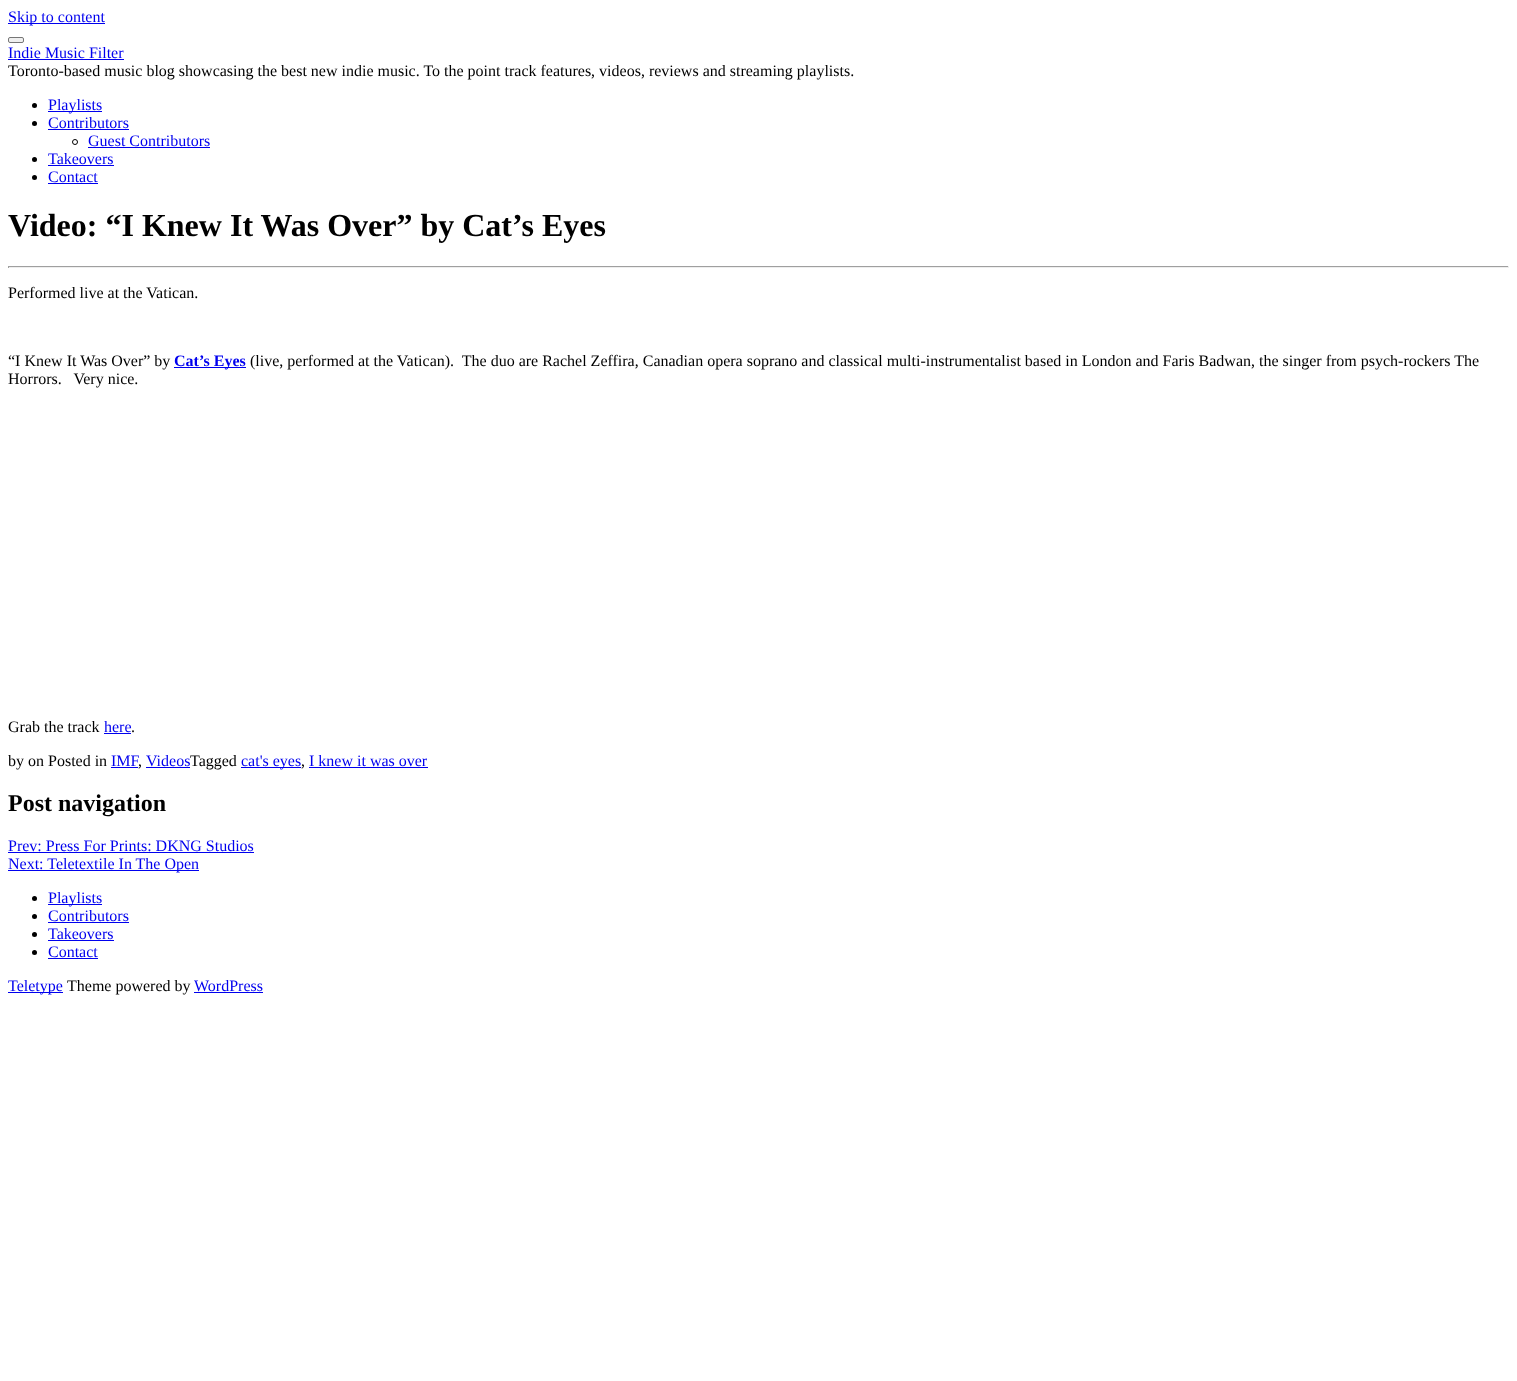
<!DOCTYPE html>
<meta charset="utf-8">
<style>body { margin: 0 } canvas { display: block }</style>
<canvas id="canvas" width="1517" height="1381"></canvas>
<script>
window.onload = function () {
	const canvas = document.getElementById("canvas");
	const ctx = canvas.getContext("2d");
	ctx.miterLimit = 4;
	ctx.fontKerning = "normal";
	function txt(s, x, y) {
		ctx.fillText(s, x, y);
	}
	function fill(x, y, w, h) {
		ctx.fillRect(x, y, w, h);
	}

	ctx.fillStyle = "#FFFFFF";
	fill(0, 0, 1517, 1381);
	ctx.fillStyle = "#0000EE";
	fill(8, 23, 97, 1);
	ctx.fillStyle = "#EFEFEF";
	ctx.beginPath();
	ctx.roundRect(8.5, 37.5, 15, 5, 1.5);
	ctx.fill();
	ctx.strokeStyle = "#767676";
	ctx.stroke();
	ctx.fillStyle = "#0000EE";
	fill(8, 59, 116, 1);
	ctx.fillStyle = "#000000";
	ctx.beginPath();
	ctx.arc(34.5, 105.5, 2.5, 0, Math.PI * 2);
	ctx.fill();
	ctx.fillStyle = "#0000EE";
	fill(48, 111, 54, 1);
	ctx.fillStyle = "#000000";
	ctx.beginPath();
	ctx.arc(34.5, 123.5, 2.5, 0, Math.PI * 2);
	ctx.fill();
	ctx.fillStyle = "#0000EE";
	fill(48, 129, 81, 1);
	ctx.beginPath();
	ctx.arc(75, 142, 2.5, 0, Math.PI * 2);
	ctx.strokeStyle = "#000000";
	ctx.stroke();
	fill(88, 147, 122, 1);
	ctx.fillStyle = "#000000";
	ctx.beginPath();
	ctx.arc(34.5, 159.5, 2.5, 0, Math.PI * 2);
	ctx.fill();
	ctx.fillStyle = "#0000EE";
	fill(48, 165, 66, 1);
	ctx.fillStyle = "#000000";
	ctx.beginPath();
	ctx.arc(34.5, 177.5, 2.5, 0, Math.PI * 2);
	ctx.fill();
	ctx.fillStyle = "#0000EE";
	fill(48, 183, 50, 1);
	ctx.fillStyle = "#9F9F9F";
	fill(8, 266, 1501, 1);
	ctx.fillStyle = "#EEEEEE";
	fill(1508, 266, 1, 2);
	fill(8, 267, 1501, 1);
	ctx.fillStyle = "#9F9F9F";
	fill(8, 266, 1, 2);
	ctx.fillStyle = "#0000EE";
	fill(174, 367, 72, 1);
	fill(104, 733, 27, 1);
	fill(111, 767, 27, 1);
	fill(146, 767, 44, 1);
	fill(241, 767, 60, 1);
	fill(309, 767, 119, 1);
	fill(8, 852, 246, 1);
	fill(8, 870, 191, 1);
	ctx.fillStyle = "#000000";
	ctx.beginPath();
	ctx.arc(34.5, 898.5, 2.5, 0, Math.PI * 2);
	ctx.fill();
	ctx.fillStyle = "#0000EE";
	fill(48, 904, 54, 1);
	ctx.fillStyle = "#000000";
	ctx.beginPath();
	ctx.arc(34.5, 916.5, 2.5, 0, Math.PI * 2);
	ctx.fill();
	ctx.fillStyle = "#0000EE";
	fill(48, 922, 81, 1);
	ctx.fillStyle = "#000000";
	ctx.beginPath();
	ctx.arc(34.5, 934.5, 2.5, 0, Math.PI * 2);
	ctx.fill();
	ctx.fillStyle = "#0000EE";
	fill(48, 940, 66, 1);
	ctx.fillStyle = "#000000";
	ctx.beginPath();
	ctx.arc(34.5, 952.5, 2.5, 0, Math.PI * 2);
	ctx.fill();
	ctx.fillStyle = "#0000EE";
	fill(48, 958, 50, 1);
	fill(8, 992, 55, 1);
	fill(194, 992, 69, 1);
	ctx.font = "16px Liberation Serif";
	txt("Skip to content", 8, 22);
	txt("Indie Music Filter", 8, 58);
	ctx.fillStyle = "#000000";
	txt("Toronto-based music blog showcasing the best new indie music. To the point track features, videos, reviews and streaming playlists.", 8, 76);
	ctx.fillStyle = "#0000EE";
	txt("Playlists", 48, 110);
	txt("Contributors", 48, 128);
	txt("Guest Contributors", 88, 146);
	txt("Takeovers", 48, 164);
	txt("Contact", 48, 182);
	ctx.font = "bold 32px Liberation Serif";
	ctx.fillStyle = "#000000";
	txt("Video: “I Knew It Was Over” by Cat’s Eyes", 8, 236);
	ctx.font = "16px Liberation Serif";
	txt("Performed live at the Vatican.", 8, 298);
	txt("“I Knew It Was Over” by", 8, 366);
	ctx.font = "bold 16px Liberation Serif";
	ctx.fillStyle = "#0000EE";
	txt("Cat’s Eyes", 174, 366);
	ctx.font = "16px Liberation Serif";
	ctx.fillStyle = "#000000";
	txt("(live, performed at the Vatican).  The duo are Rachel Zeffira, Canadian opera soprano and classical multi-instrumentalist based in London and Faris Badwan, the singer from psych-rockers The", 250, 366);
	txt("Horrors.   Very nice.", 8, 384);
	txt("Grab the track", 8, 732);
	ctx.fillStyle = "#0000EE";
	txt("here", 104, 732);
	ctx.fillStyle = "#000000";
	txt(".", 131, 732);
	txt("by on Posted in", 8, 766);
	ctx.fillStyle = "#0000EE";
	txt("IMF", 111, 766);
	ctx.fillStyle = "#000000";
	txt(",", 138, 766);
	ctx.fillStyle = "#0000EE";
	txt("Videos", 146, 766);
	ctx.fillStyle = "#000000";
	txt("Tagged", 190, 766);
	ctx.fillStyle = "#0000EE";
	txt("cat's eyes", 241, 766);
	ctx.fillStyle = "#000000";
	txt(",", 301, 766);
	ctx.fillStyle = "#0000EE";
	txt("I knew it was over", 309, 766);
	ctx.font = "bold 24px Liberation Serif";
	ctx.fillStyle = "#000000";
	txt("Post navigation", 8, 811);
	ctx.font = "16px Liberation Serif";
	ctx.fillStyle = "#0000EE";
	txt("Prev: Press For Prints: DKNG Studios", 8, 851);
	txt("Next: Teletextile In The Open", 8, 869);
	txt("Playlists", 48, 903);
	txt("Contributors", 48, 921);
	txt("Takeovers", 48, 939);
	txt("Contact", 48, 957);
	txt("Teletype", 8, 991);
	ctx.fillStyle = "#000000";
	txt("Theme powered by", 67, 991);
	ctx.fillStyle = "#0000EE";
	txt("WordPress", 194, 991);
};
</script>
